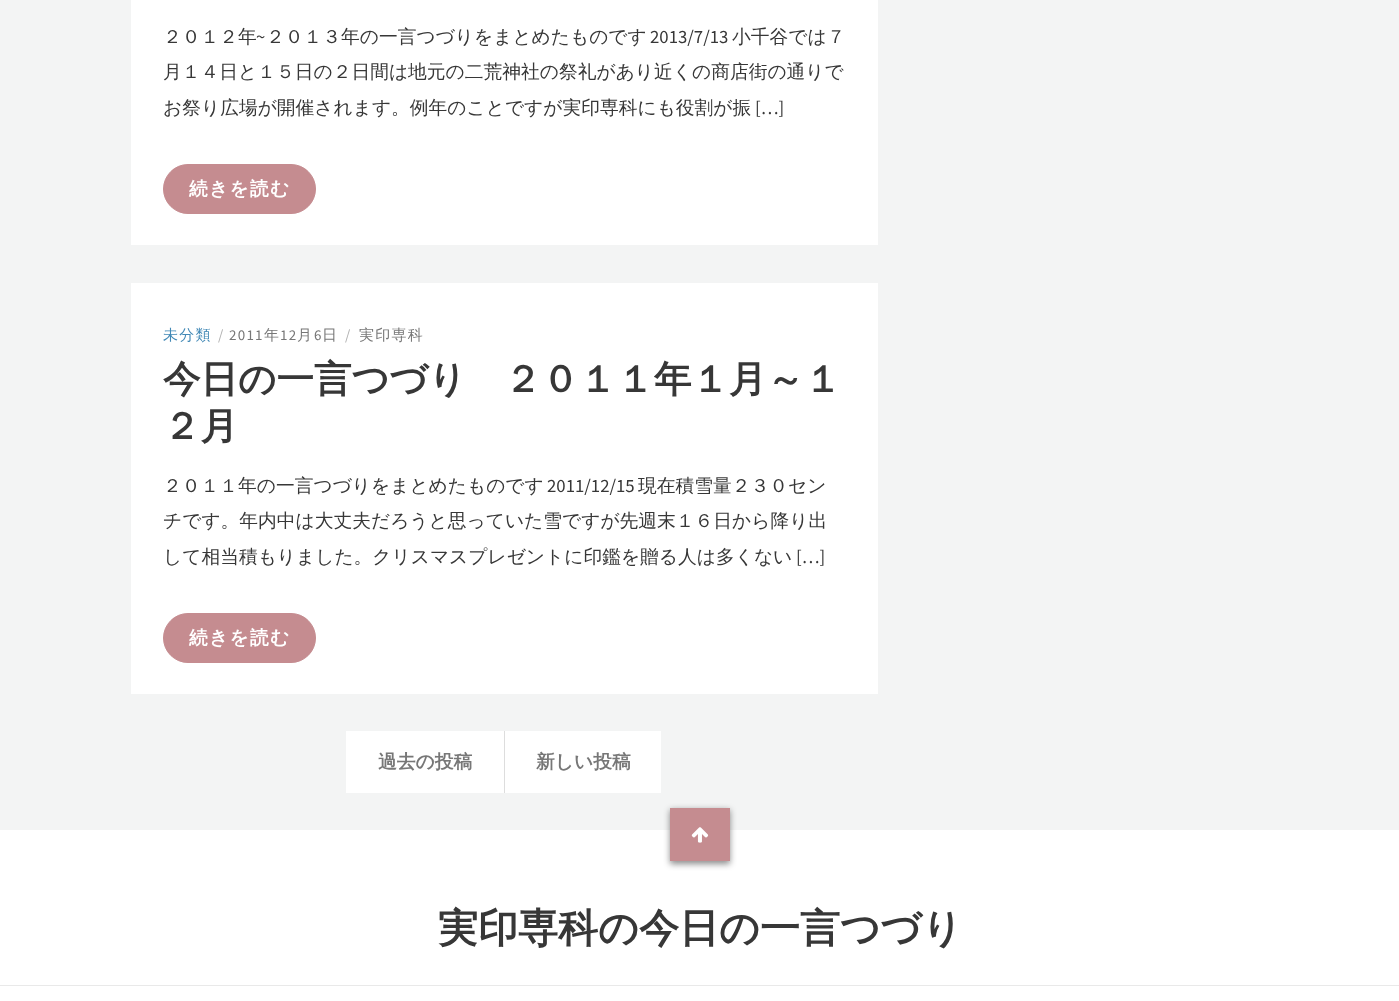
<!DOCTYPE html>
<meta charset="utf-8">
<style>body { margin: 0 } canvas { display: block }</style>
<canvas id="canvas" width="1399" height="1001"></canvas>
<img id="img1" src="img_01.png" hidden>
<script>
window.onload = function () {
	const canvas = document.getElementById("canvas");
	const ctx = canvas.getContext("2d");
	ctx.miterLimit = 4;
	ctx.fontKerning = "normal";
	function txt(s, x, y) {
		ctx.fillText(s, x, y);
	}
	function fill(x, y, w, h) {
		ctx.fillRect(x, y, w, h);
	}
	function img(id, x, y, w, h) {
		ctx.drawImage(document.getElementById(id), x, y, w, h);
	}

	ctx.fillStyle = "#F3F4F4";
	fill(0, 0, 1399, 1001);
	ctx.fillStyle = "#FFFFFF";
	fill(131, 0, 747, 245);
	ctx.fillStyle = "#C58C90";
	ctx.beginPath();
	ctx.roundRect(163.5, 164.5, 152, 49, 24.5);
	ctx.fill();
	ctx.strokeStyle = "#C58C90";
	ctx.stroke();
	ctx.fillStyle = "#FFFFFF";
	fill(131, 283, 747, 411);
	ctx.fillStyle = "#C58C90";
	ctx.beginPath();
	ctx.roundRect(163.5, 613.5, 152, 49, 24.5);
	ctx.fill();
	ctx.stroke();
	ctx.fillStyle = "#FFFFFF";
	fill(346, 731, 158, 62);
	ctx.fillStyle = "#DDDDDD";
	fill(504, 731, 1, 62);
	ctx.fillStyle = "#FFFFFF";
	fill(505, 731, 156, 62);
	fill(0, 830, 1399, 171);
	ctx.fillStyle = "rgba(0, 0, 0, 0.45)";
	ctx.filter = "blur(3px)";
	ctx.beginPath();
	ctx.rect(670, 810, 60, 54);
	ctx.fill();
	ctx.filter = "none";
	ctx.fillStyle = "#C58C90";
	fill(670, 808, 60, 53);
	img("img1", 691, 827, 18, 16);
	ctx.fillStyle = "#E9E9E9";
	fill(0, 985, 1399, 1);
	ctx.font = "500 18.75px WenQuanYi Zen Hei";
	ctx.fillStyle = "#373737";
	txt("２０１２年", 163, 43);
	ctx.font = "18.75px Source Sans Pro";
	txt("~", 256, 43);
	ctx.font = "500 18.75px WenQuanYi Zen Hei";
	txt("２０１３年の一言つづりをまとめたものです", 266, 43);
	ctx.font = "18.75px Source Sans Pro";
	txt("2013/7/13", 650, 43);
	ctx.font = "500 18.75px WenQuanYi Zen Hei";
	txt("小千谷では７", 732, 43);
	txt("月１４日と１５日の２日間は地元の二荒神社の祭礼があり近くの商店街の通りで", 163, 78);
	txt("お祭り広場が開催されます。例年のことですが実印専科にも役割が振", 163, 114);
	ctx.font = "18.75px Source Sans Pro";
	txt("[…]", 755, 114);
	ctx.letterSpacing = "1.25px";
	ctx.font = "bold 18.75px WenQuanYi Zen Hei";
	ctx.fillStyle = "#FFFFFF";
	txt("続きを読む", 189, 195);
	ctx.font = "500 15px WenQuanYi Zen Hei";
	ctx.fillStyle = "#4289B6";
	txt("未分類", 163, 340);
	ctx.letterSpacing = "0px";
	ctx.font = "15px Source Sans Pro";
	ctx.fillStyle = "#B1B1B1";
	txt("/", 218, 340);
	ctx.letterSpacing = "1.25px";
	ctx.fillStyle = "#777777";
	txt("2011", 229, 340);
	ctx.font = "500 15px WenQuanYi Zen Hei";
	txt("年", 264, 340);
	ctx.font = "15px Source Sans Pro";
	txt("12", 280, 340);
	ctx.font = "500 15px WenQuanYi Zen Hei";
	txt("月", 297, 340);
	ctx.font = "15px Source Sans Pro";
	txt("6", 314, 340);
	ctx.font = "500 15px WenQuanYi Zen Hei";
	txt("日", 322, 340);
	ctx.letterSpacing = "0px";
	ctx.font = "15px Source Sans Pro";
	ctx.fillStyle = "#B1B1B1";
	txt("/", 345, 340);
	ctx.letterSpacing = "1.25px";
	ctx.font = "500 15px WenQuanYi Zen Hei";
	ctx.fillStyle = "#777777";
	txt("実印専科", 359, 340);
	ctx.letterSpacing = "0px";
	ctx.font = "bold 37.5px WenQuanYi Zen Hei";
	ctx.fillStyle = "#373737";
	txt("今日の一言つづり　２０１１年１月～１", 163, 392);
	txt("２月", 163, 439);
	ctx.font = "500 18.75px WenQuanYi Zen Hei";
	txt("２０１１年の一言つづりをまとめたものです", 163, 492);
	ctx.font = "18.75px Source Sans Pro";
	txt("2011/12/15", 547, 492);
	ctx.font = "500 18.75px WenQuanYi Zen Hei";
	txt("現在積雪量２３０セン", 638, 492);
	txt("チです。年内中は大丈夫だろうと思っていた雪ですが先週末１６日から降り出", 163, 527);
	txt("して相当積もりました。クリスマスプレゼントに印鑑を贈る人は多くない", 163, 563);
	ctx.font = "18.75px Source Sans Pro";
	txt("[…]", 796, 563);
	ctx.letterSpacing = "1.25px";
	ctx.font = "bold 18.75px WenQuanYi Zen Hei";
	ctx.fillStyle = "#FFFFFF";
	txt("続きを読む", 189, 644);
	ctx.letterSpacing = "0px";
	ctx.fillStyle = "#777777";
	txt("過去の投稿", 378, 768);
	txt("新しい投稿", 536, 768);
	ctx.font = "bold 40px WenQuanYi Zen Hei";
	ctx.fillStyle = "#373737";
	txt("実印専科の今日の一言つづり", 438, 942);
};
</script>
